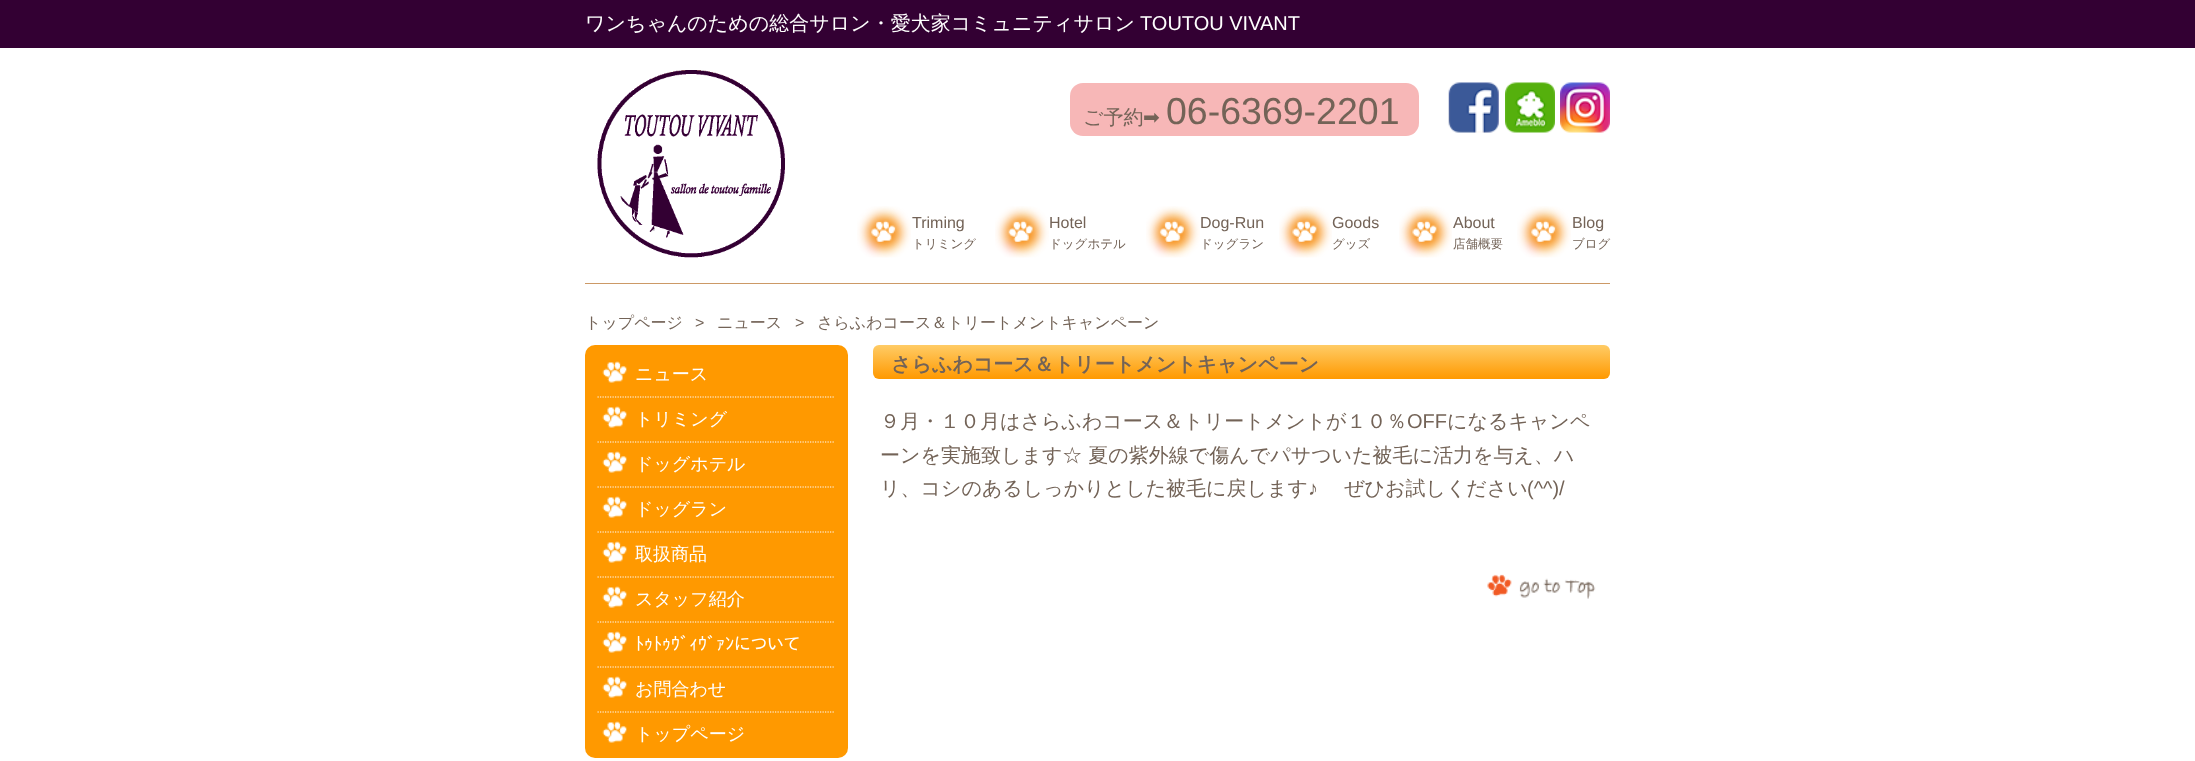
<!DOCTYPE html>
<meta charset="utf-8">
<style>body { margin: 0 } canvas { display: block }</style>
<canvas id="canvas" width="2195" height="761"></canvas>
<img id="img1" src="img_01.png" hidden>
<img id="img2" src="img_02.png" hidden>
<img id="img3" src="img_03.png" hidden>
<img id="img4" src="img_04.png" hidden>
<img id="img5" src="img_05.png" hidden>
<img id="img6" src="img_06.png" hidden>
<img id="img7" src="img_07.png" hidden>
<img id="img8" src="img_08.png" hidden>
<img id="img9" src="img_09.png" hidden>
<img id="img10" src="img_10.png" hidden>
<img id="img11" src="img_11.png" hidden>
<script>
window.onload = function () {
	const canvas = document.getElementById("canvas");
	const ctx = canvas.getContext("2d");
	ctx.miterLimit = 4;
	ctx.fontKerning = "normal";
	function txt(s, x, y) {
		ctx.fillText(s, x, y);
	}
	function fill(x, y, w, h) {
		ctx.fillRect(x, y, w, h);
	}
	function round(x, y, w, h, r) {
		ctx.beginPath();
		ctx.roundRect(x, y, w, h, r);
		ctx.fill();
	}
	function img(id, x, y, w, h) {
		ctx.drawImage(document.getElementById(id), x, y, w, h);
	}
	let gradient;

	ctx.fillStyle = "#FFFFFF";
	fill(0, 0, 2195, 761);
	ctx.fillStyle = "#330033";
	fill(0, 0, 2195, 48);
	ctx.fillStyle = "#CC9966";
	fill(585, 283, 1025, 1);
	img("img1", 597, 70, 188, 188);
	ctx.fillStyle = "#F7B7B7";
	round(1070, 83, 349, 53, 13);
	img("img2", 1448, 82, 51, 51);
	img("img3", 1505, 82, 50, 51);
	img("img4", 1560, 82, 50, 51);
	img("img5", 857, 206, 54, 52);
	img("img6", 995, 206, 54, 52);
	img("img7", 1146, 206, 54, 52);
	img("img8", 1279, 206, 53, 52);
	img("img8", 1399, 206, 53, 52);
	img("img5", 1517, 206, 54, 52);
	ctx.fillStyle = "#FF9900";
	round(585, 345, 263, 413, 10);
	img("img9", 602, 361, 25, 22);
	img("img9", 602, 406, 25, 22);
	ctx.beginPath();
	ctx.moveTo(597.5, 397);
	ctx.lineTo(835, 397);
	ctx.strokeStyle = "#FFFFFF";
	ctx.lineWidth = 1.2;
	ctx.setLineDash([1.25, 1.25]);
	ctx.stroke();
	img("img9", 602, 451, 25, 22);
	ctx.beginPath();
	ctx.moveTo(597.5, 442);
	ctx.lineTo(835, 442);
	ctx.stroke();
	img("img9", 602, 496, 25, 22);
	ctx.beginPath();
	ctx.moveTo(597.5, 487);
	ctx.lineTo(835, 487);
	ctx.stroke();
	img("img9", 602, 541, 25, 22);
	ctx.beginPath();
	ctx.moveTo(597.5, 532);
	ctx.lineTo(835, 532);
	ctx.stroke();
	img("img10", 602, 586, 25, 22);
	ctx.beginPath();
	ctx.moveTo(597.5, 577);
	ctx.lineTo(835, 577);
	ctx.stroke();
	img("img9", 602, 631, 25, 22);
	ctx.beginPath();
	ctx.moveTo(597.5, 622);
	ctx.lineTo(835, 622);
	ctx.stroke();
	img("img9", 602, 676, 25, 22);
	ctx.beginPath();
	ctx.moveTo(597.5, 667);
	ctx.lineTo(835, 667);
	ctx.stroke();
	img("img9", 602, 721, 25, 22);
	ctx.beginPath();
	ctx.moveTo(597.5, 712);
	ctx.lineTo(835, 712);
	ctx.stroke();
	gradient = ctx.createLinearGradient(873, 345, 873, 379);
	gradient.addColorStop(0, "#FFCC66");
	gradient.addColorStop(1, "#FF9900");
	ctx.fillStyle = gradient;
	round(873, 345, 737, 34, 6);
	img("img11", 1487, 574, 109, 25);
	ctx.font = "500 20px WenQuanYi Zen Hei";
	ctx.fillStyle = "#FFFFFF";
	txt("ワンちゃんのための総合サロン・愛犬家コミュニティサロン", 585, 30);
	ctx.font = "20px Liberation Sans";
	txt("TOUTOU VIVANT", 1140, 30);
	ctx.font = "500 20px WenQuanYi Zen Hei";
	ctx.fillStyle = "#736357";
	txt("ご予約", 1083, 124);
	ctx.font = "20px DejaVu Sans";
	txt("➡︎", 1143, 124);
	ctx.font = "37.5px Liberation Sans";
	txt("06-6369-2201", 1166, 124);
	ctx.font = "16px Liberation Sans";
	txt("Triming", 912, 228);
	ctx.font = "500 12.5px WenQuanYi Zen Hei";
	txt("トリミング", 912, 248);
	ctx.font = "16px Liberation Sans";
	txt("Hotel", 1049, 228);
	ctx.font = "500 12.5px WenQuanYi Zen Hei";
	txt("ドッグホテル", 1049, 248);
	ctx.font = "16px Liberation Sans";
	txt("Dog-Run", 1200, 228);
	ctx.font = "500 12.5px WenQuanYi Zen Hei";
	txt("ドッグラン", 1200, 248);
	ctx.font = "16px Liberation Sans";
	txt("Goods", 1332, 228);
	ctx.font = "500 12.5px WenQuanYi Zen Hei";
	txt("グッズ", 1332, 248);
	ctx.font = "16px Liberation Sans";
	txt("About", 1453, 228);
	ctx.font = "500 12.5px WenQuanYi Zen Hei";
	txt("店舗概要", 1453, 248);
	ctx.font = "16px Liberation Sans";
	txt("Blog", 1572, 228);
	ctx.font = "500 12.5px WenQuanYi Zen Hei";
	txt("ブログ", 1572, 248);
	ctx.font = "500 16px WenQuanYi Zen Hei";
	txt("トップページ", 585, 328);
	ctx.letterSpacing = "12px";
	ctx.font = "16px Liberation Sans";
	txt(">", 695, 328);
	ctx.letterSpacing = "0px";
	ctx.font = "500 16px WenQuanYi Zen Hei";
	txt("ニュース", 717, 328);
	ctx.letterSpacing = "12px";
	ctx.font = "16px Liberation Sans";
	txt(">", 795, 328);
	ctx.letterSpacing = "0px";
	ctx.font = "500 16px WenQuanYi Zen Hei";
	txt("さらふわコース＆トリートメントキャンペーン", 817, 328);
	ctx.font = "500 18px WenQuanYi Zen Hei";
	ctx.fillStyle = "#FFFFFF";
	txt("ニュース", 635, 380);
	txt("トリミング", 635, 425);
	txt("ドッグホテル", 635, 470);
	txt("ドッグラン", 635, 515);
	txt("取扱商品", 635, 560);
	txt("スタッフ紹介", 635, 605);
	ctx.font = "18px IPAPGothic";
	txt("ﾄｩﾄｩｳﾞｨｳﾞｧﾝについて", 635, 650);
	ctx.font = "500 18px WenQuanYi Zen Hei";
	txt("お問合わせ", 635, 695);
	txt("トップページ", 635, 740);
	ctx.font = "bold 20px WenQuanYi Zen Hei";
	ctx.fillStyle = "#736357";
	txt("さらふわコース＆トリートメントキャンペーン", 891, 371);
	ctx.font = "500 20px WenQuanYi Zen Hei";
	txt("９月・１０月はさらふわコース＆トリートメントが１０％", 880, 428);
	ctx.font = "20px Liberation Sans";
	txt("OFF", 1407, 428);
	ctx.font = "500 20px WenQuanYi Zen Hei";
	txt("になるキャンペ", 1447, 428);
	txt("ーンを実施致します☆ 夏の紫外線で傷んでパサついた被毛に活力を与え、ハ", 880, 462);
	txt("リ、コシのあるしっかりとした被毛に戻します", 880, 495);
	ctx.font = "20px Liberation Sans";
	txt("♪", 1308, 495);
	ctx.font = "500 20px WenQuanYi Zen Hei";
	txt("ぜひお試しください", 1344, 495);
	ctx.font = "20px Liberation Sans";
	txt("(^^)/", 1527, 495);
};
</script>
